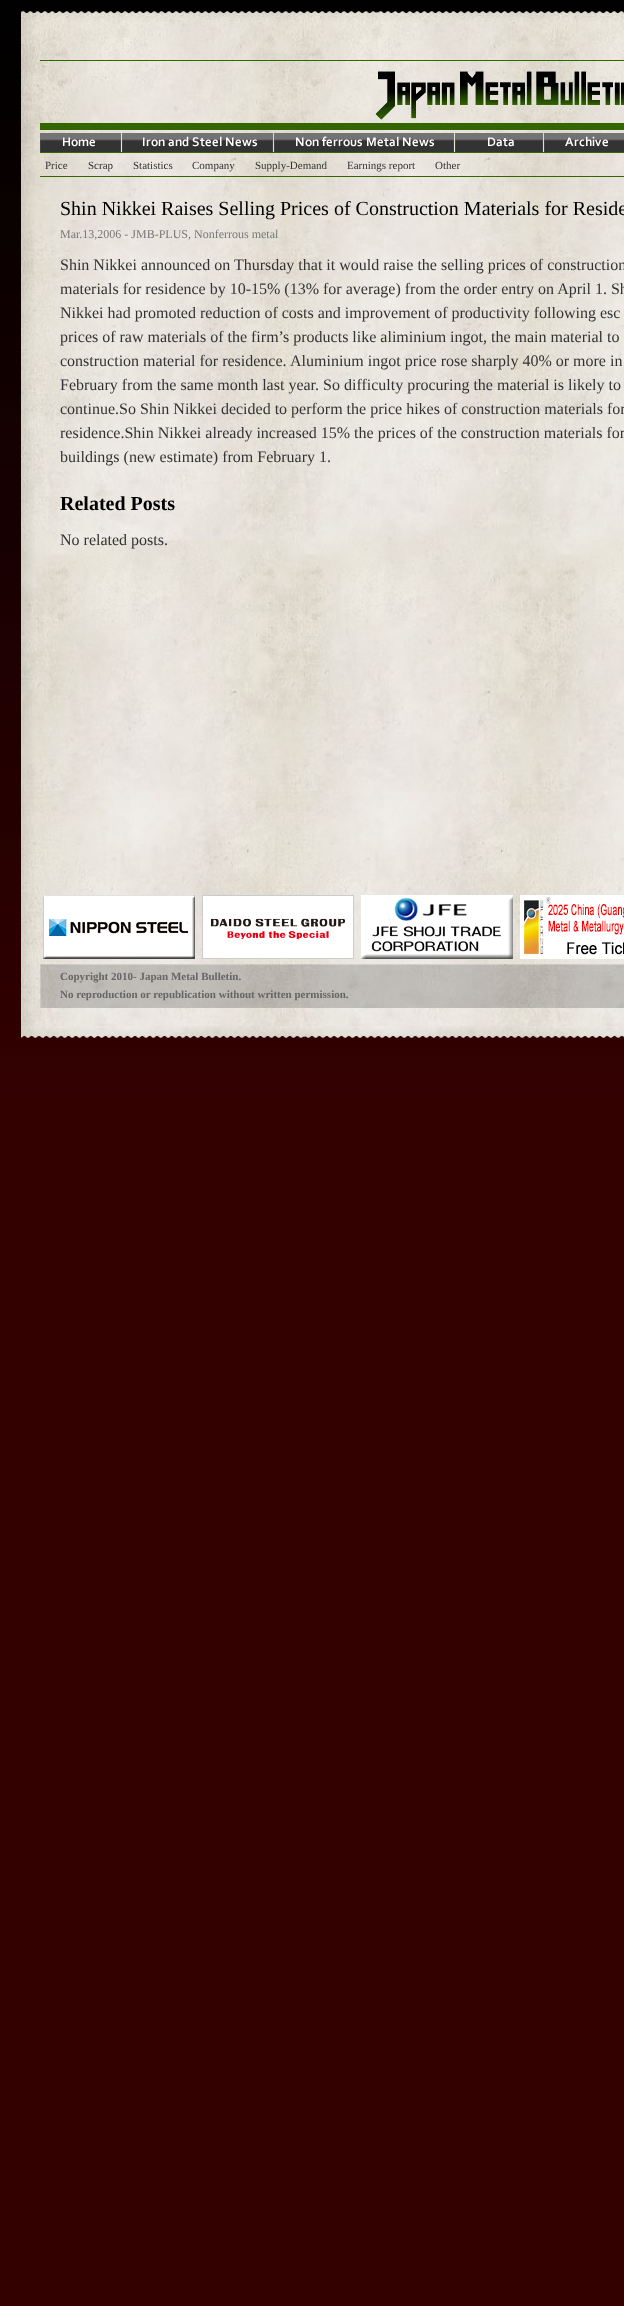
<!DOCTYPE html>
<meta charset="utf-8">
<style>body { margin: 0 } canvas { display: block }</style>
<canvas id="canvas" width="624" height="2306"></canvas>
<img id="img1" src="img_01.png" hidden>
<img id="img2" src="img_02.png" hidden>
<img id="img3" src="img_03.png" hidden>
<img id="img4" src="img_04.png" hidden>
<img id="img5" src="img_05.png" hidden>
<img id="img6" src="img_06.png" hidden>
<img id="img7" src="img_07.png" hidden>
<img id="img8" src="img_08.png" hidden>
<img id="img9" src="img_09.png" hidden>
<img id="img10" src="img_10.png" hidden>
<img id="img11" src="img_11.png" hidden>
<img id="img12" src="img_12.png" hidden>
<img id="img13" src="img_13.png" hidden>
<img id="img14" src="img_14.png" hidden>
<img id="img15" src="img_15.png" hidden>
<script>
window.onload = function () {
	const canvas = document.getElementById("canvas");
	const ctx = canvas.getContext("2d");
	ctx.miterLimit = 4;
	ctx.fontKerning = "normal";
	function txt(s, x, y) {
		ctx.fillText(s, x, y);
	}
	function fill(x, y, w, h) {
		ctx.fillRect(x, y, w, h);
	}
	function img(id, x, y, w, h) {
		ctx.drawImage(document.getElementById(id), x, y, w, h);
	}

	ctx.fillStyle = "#FFFFFF";
	fill(0, 0, 624, 2306);
	img("img1", 0, 0, 624, 2306);
	img("img2", 20, 10, 604, 10);
	img("img3", 20, 20, 604, 1006);
	ctx.fillStyle = "#336600";
	fill(40, 60, 584, 1);
	img("img4", 40, 71, 584, 59);
	img("img5", 40, 133, 81, 19);
	img("img6", 122, 133, 151, 19);
	img("img7", 274, 133, 180, 19);
	img("img8", 455, 133, 88, 19);
	img("img9", 544, 133, 80, 19);
	fill(40, 152, 584, 1);
	fill(40, 176, 584, 1);
	img("img10", 43, 895, 152, 64);
	img("img11", 202, 895, 152, 64);
	img("img12", 361, 895, 152, 64);
	img("img13", 520, 895, 104, 64);
	img("img14", 40, 964, 584, 44);
	img("img15", 20, 1026, 604, 13);
	ctx.font = "11px Liberation Serif";
	ctx.fillStyle = "#333333";
	txt("Price", 45, 169);
	txt("Scrap", 88, 169);
	txt("Statistics", 133, 169);
	txt("Company", 192, 169);
	txt("Supply-Demand", 255, 169);
	txt("Earnings report", 347, 169);
	txt("Other", 435, 169);
	ctx.font = "20px Liberation Serif";
	ctx.fillStyle = "#000000";
	txt("Shin Nikkei Raises Selling Prices of Construction Materials for Reside", 60, 215);
	ctx.font = "12px Liberation Serif";
	ctx.fillStyle = "#777777";
	txt("Mar.13,2006 - JMB-PLUS, Nonferrous metal", 60, 238);
	ctx.font = "16px Liberation Serif";
	ctx.fillStyle = "#333333";
	txt("Shin Nikkei announced on Thursday that it would raise the selling prices of construction", 60, 270);
	txt("materials for residence by 10-15% (13% for average) from the order entry on April 1. Sh", 60, 294);
	txt("Nikkei had promoted reduction of costs and improvement of productivity following esc", 60, 318);
	txt("prices of raw materials of the firm’s products like aliminium ingot, the main material to", 60, 342);
	txt("construction material for residence.", 60, 366);
	txt("Aluminium ingot price rose sharply 40% or more in", 290, 366);
	txt("February from the same month last year. So difficulty procuring the material is likely to", 60, 390);
	txt("continue.So Shin Nikkei decided to perform the price hikes of construction materials for", 60, 414);
	txt("residence.Shin Nikkei already increased 15% the prices of the construction materials for", 60, 438);
	txt("buildings (new estimate) from February 1.", 60, 462);
	ctx.font = "bold 20px Liberation Serif";
	ctx.fillStyle = "#000000";
	txt("Related Posts", 60, 510);
	ctx.font = "16px Liberation Serif";
	ctx.fillStyle = "#333333";
	txt("No related posts.", 60, 545);
	ctx.font = "bold 11px Liberation Serif";
	ctx.fillStyle = "#666666";
	txt("Copyright 2010- Japan Metal Bulletin.", 60, 980);
	txt("No reproduction or republication without written permission.", 60, 998);
};
</script>
